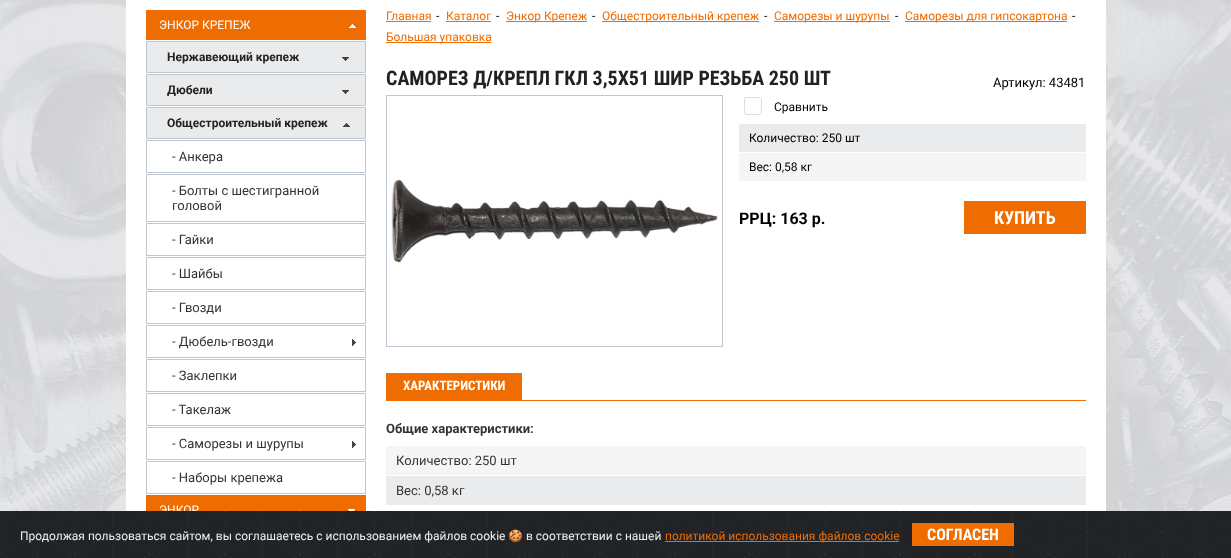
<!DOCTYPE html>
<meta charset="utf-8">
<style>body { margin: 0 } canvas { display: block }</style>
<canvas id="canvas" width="1231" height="558"></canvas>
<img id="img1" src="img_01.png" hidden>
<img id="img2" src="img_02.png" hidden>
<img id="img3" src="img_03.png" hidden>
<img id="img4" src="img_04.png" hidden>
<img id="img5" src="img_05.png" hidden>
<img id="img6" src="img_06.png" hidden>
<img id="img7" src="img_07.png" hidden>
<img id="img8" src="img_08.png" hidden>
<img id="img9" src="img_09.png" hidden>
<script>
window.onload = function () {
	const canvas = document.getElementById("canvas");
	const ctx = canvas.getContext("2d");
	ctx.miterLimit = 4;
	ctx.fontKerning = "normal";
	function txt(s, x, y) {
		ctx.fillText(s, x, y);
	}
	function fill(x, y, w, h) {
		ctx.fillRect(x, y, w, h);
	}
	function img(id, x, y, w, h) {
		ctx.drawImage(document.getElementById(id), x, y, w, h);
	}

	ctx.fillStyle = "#FFFFFF";
	fill(0, 0, 1231, 558);
	img("img1", 0, 0, 1231, 511);
	fill(126, 0, 980, 511);
	ctx.fillStyle = "#EF6C00";
	fill(146, 10, 220, 30);
	img("img2", 349, 24, 7, 4);
	ctx.fillStyle = "#EAEBED";
	ctx.beginPath();
	ctx.rect(146.5, 41.5, 219, 31);
	ctx.fill();
	ctx.strokeStyle = "#BFC5D1";
	ctx.stroke();
	img("img3", 342, 57, 7, 4);
	ctx.beginPath();
	ctx.rect(146.5, 74.5, 219, 31);
	ctx.fill();
	ctx.stroke();
	img("img3", 342, 90, 7, 4);
	ctx.beginPath();
	ctx.rect(146.5, 107.5, 219, 31);
	ctx.fill();
	ctx.stroke();
	img("img4", 343, 123, 7, 4);
	ctx.strokeRect(146.5, 140.5, 219, 32);
	ctx.strokeRect(146.5, 174.5, 219, 47);
	ctx.strokeRect(146.5, 223.5, 219, 32);
	ctx.strokeRect(146.5, 257.5, 219, 32);
	ctx.strokeRect(146.5, 291.5, 219, 32);
	ctx.strokeRect(146.5, 325.5, 219, 32);
	img("img5", 352, 339, 4, 7);
	ctx.strokeRect(146.5, 359.5, 219, 32);
	ctx.strokeRect(146.5, 393.5, 219, 32);
	ctx.strokeRect(146.5, 427.5, 219, 32);
	img("img5", 352, 441, 4, 7);
	ctx.strokeRect(146.5, 461.5, 219, 32);
	ctx.fillStyle = "#EF6C00";
	fill(146, 495, 220, 16);
	img("img6", 348, 509, 7, 2);
	fill(386, 21, 45, 1);
	fill(446, 21, 45, 1);
	fill(506, 21, 81, 1);
	fill(602, 21, 157, 1);
	fill(774, 21, 116, 1);
	fill(905, 21, 162, 1);
	fill(386, 42, 105, 1);
	img("img7", 391, 179, 327, 84);
	ctx.strokeRect(386.5, 95.5, 336, 251);
	img("img8", 744, 97, 18, 18);
	ctx.fillStyle = "#EAEBED";
	fill(739, 124, 347, 28);
	ctx.fillStyle = "#F5F5F5";
	fill(739, 153, 347, 28);
	ctx.fillStyle = "#EF6C00";
	fill(964, 201, 122, 33);
	fill(522, 400, 564, 1);
	fill(386, 373, 136, 28);
	ctx.fillStyle = "#F5F5F5";
	fill(386, 446, 700, 29);
	ctx.fillStyle = "#EAEBED";
	fill(386, 476, 700, 29);
	ctx.fillStyle = "#212327";
	fill(1230, 511, 1, 47);
	ctx.font = "12px Roboto";
	ctx.fillStyle = "#FFFFFF";
	txt("ЭНКОР КРЕПЕЖ", 159, 29);
	ctx.font = "bold 12px Roboto";
	ctx.fillStyle = "#222222";
	txt("Нержавеющий крепеж", 167, 61);
	txt("Дюбели", 167, 94);
	txt("Общестроительный крепеж", 167, 127);
	ctx.font = "13px Roboto";
	ctx.fillStyle = "#333333";
	txt("- Анкера", 172, 161);
	txt("- Болты с шестигранной", 172, 195);
	txt("головой", 172, 210);
	txt("- Гайки", 172, 244);
	txt("- Шайбы", 172, 278);
	txt("- Гвозди", 172, 312);
	txt("- Дюбель-гвозди", 172, 346);
	txt("- Заклепки", 172, 380);
	txt("- Такелаж", 172, 414);
	txt("- Саморезы и шурупы", 172, 448);
	txt("- Наборы крепежа", 172, 482);
	ctx.font = "12px Roboto";
	ctx.fillStyle = "#FFFFFF";
	txt("ЭНКОР", 159, 514);
	ctx.fillStyle = "#EF6C00";
	txt("Главная", 386, 20);
	ctx.fillStyle = "#000000";
	txt("-", 436, 20);
	ctx.fillStyle = "#EF6C00";
	txt("Каталог", 446, 20);
	ctx.fillStyle = "#000000";
	txt("-", 496, 20);
	ctx.fillStyle = "#EF6C00";
	txt("Энкор Крепеж", 506, 20);
	ctx.fillStyle = "#000000";
	txt("-", 592, 20);
	ctx.fillStyle = "#EF6C00";
	txt("Общестроительный крепеж", 602, 20);
	ctx.fillStyle = "#000000";
	txt("-", 764, 20);
	ctx.fillStyle = "#EF6C00";
	txt("Саморезы и шурупы", 774, 20);
	ctx.fillStyle = "#000000";
	txt("-", 895, 20);
	ctx.fillStyle = "#EF6C00";
	txt("Саморезы для гипсокартона", 905, 20);
	ctx.fillStyle = "#000000";
	txt("-", 1072, 20);
	ctx.fillStyle = "#EF6C00";
	txt("Большая упаковка", 386, 41);
	ctx.font = "bold 20px Roboto Condensed";
	ctx.fillStyle = "#222222";
	txt("САМОРЕЗ Д/КРЕПЛ ГКЛ 3,5Х51 ШИР РЕЗЬБА 250 ШТ", 386, 85);
	ctx.font = "13px Roboto";
	ctx.fillStyle = "#000000";
	txt("Артикул: 43481", 993, 87);
	ctx.font = "12px Roboto";
	txt("Сравнить", 774, 111);
	txt("Количество: 250 шт", 749, 142);
	txt("Вес: 0,58 кг", 749, 171);
	ctx.font = "bold 16px Roboto";
	txt("РРЦ: 163 р.", 739, 224);
	ctx.font = "bold 18px Roboto Condensed";
	ctx.fillStyle = "#FFFFFF";
	txt("КУПИТЬ", 994, 224);
	ctx.font = "bold 13px Roboto Condensed";
	txt("ХАРАКТЕРИСТИКИ", 403, 390);
	ctx.font = "bold 13px Roboto";
	ctx.fillStyle = "#333333";
	txt("Общие характеристики:", 386, 433);
	ctx.font = "13px Roboto";
	txt("Количество: 250 шт", 396, 465);
	txt("Вес: 0,58 кг", 396, 495);
	img("img9", 0, 511, 1230, 47);
	ctx.font = "12px Roboto";
	ctx.fillStyle = "#ECF0F1";
	txt("Продолжая пользоваться сайтом, вы соглашаетесь с использованием файлов cookie", 20, 540);
	ctx.font = "12px Noto Color Emoji";
	txt("🍪", 508, 540);
	ctx.font = "12px Roboto";
	txt("в соответствии с нашей", 526, 540);
	ctx.fillStyle = "#EF6C00";
	fill(665, 541, 234, 1);
	txt("политикой использования файлов cookie", 665, 540);
	fill(912, 523, 102, 23);
	ctx.font = "bold 16px Roboto Condensed";
	ctx.fillStyle = "#FFFFFF";
	txt("СОГЛАСЕН", 927, 540);
};
</script>
